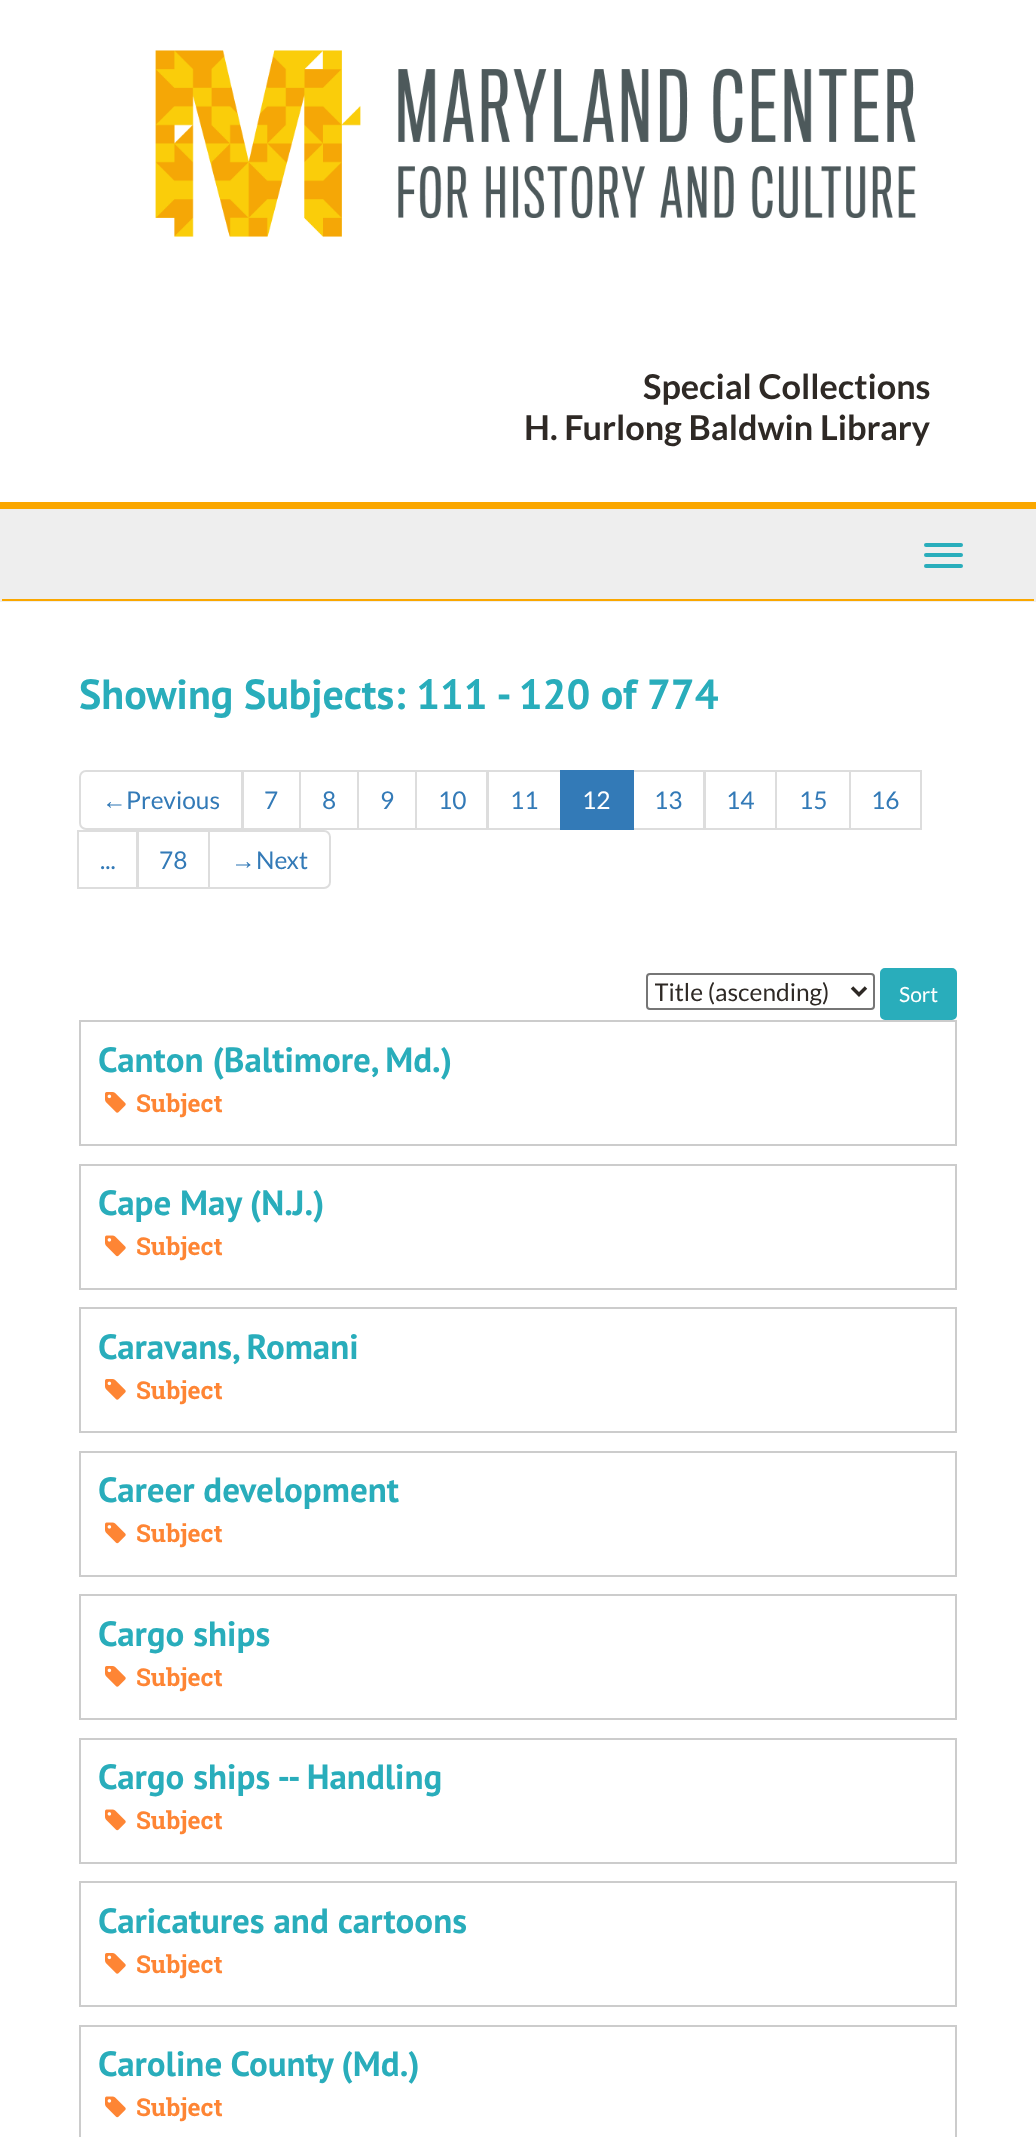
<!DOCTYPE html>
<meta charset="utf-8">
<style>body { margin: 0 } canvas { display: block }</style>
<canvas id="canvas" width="1036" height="2137"></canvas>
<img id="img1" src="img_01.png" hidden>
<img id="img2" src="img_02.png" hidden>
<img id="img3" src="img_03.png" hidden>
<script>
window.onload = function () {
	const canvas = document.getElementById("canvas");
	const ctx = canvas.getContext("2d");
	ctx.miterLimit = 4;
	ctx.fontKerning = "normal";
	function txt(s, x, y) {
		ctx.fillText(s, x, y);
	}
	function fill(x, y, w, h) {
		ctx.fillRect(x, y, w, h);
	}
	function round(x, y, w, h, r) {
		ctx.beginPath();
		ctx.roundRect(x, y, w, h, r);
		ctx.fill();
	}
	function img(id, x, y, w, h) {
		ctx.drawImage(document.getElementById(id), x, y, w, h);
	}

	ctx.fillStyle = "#FFFFFF";
	fill(0, 0, 1036, 2137);
	ctx.fillStyle = "#FAA700";
	fill(0, 502, 1036, 7);
	img("img1", 155, 50, 761, 187);
	ctx.fillStyle = "#EEEEEE";
	fill(0, 509, 1036, 93);
	ctx.fillStyle = "#FAA700";
	fill(2, 599, 1032, 2);
	ctx.fillStyle = "#29ADBB";
	round(924, 543, 39, 4, 2);
	round(924, 553, 39, 4, 2);
	round(924, 564, 39, 4, 2);
	ctx.beginPath();
	ctx.roundRect(80, 771, 162, 58, [6, 0, 0, 6]);
	ctx.strokeStyle = "#DDDDDD";
	ctx.lineWidth = 2;
	ctx.stroke();
	ctx.strokeRect(243, 771, 57, 58);
	ctx.strokeRect(300, 771, 58, 58);
	ctx.strokeRect(358, 771, 58, 58);
	ctx.strokeRect(416, 771, 71, 58);
	ctx.strokeRect(488, 771, 73, 58);
	ctx.strokeRect(633, 771, 71, 58);
	ctx.fillStyle = "#337AB7";
	fill(560, 770, 74, 60);
	ctx.strokeRect(705, 771, 71, 58);
	ctx.strokeRect(776, 771, 74, 58);
	ctx.strokeRect(850, 771, 71, 58);
	ctx.strokeRect(78, 831, 59, 57);
	ctx.strokeRect(138, 831, 71, 57);
	ctx.fillStyle = "#FFFFFF";
	ctx.beginPath();
	ctx.roundRect(209, 831, 121, 57, [0, 6, 6, 0]);
	ctx.fill();
	ctx.stroke();
	ctx.beginPath();
	ctx.roundRect(647, 974, 227, 35, 3);
	ctx.strokeStyle = "#767676";
	ctx.stroke();
	ctx.beginPath();
	ctx.moveTo(852, 987.5);
	ctx.lineTo(859, 994.5);
	ctx.lineTo(866, 987.5);
	ctx.strokeStyle = "#2E2925";
	ctx.lineWidth = 3.5;
	ctx.stroke();
	ctx.fillStyle = "#29ADBB";
	ctx.beginPath();
	ctx.roundRect(881, 969, 75, 50, 4);
	ctx.fill();
	ctx.strokeStyle = "#29ADBB";
	ctx.lineWidth = 2;
	ctx.stroke();
	ctx.strokeStyle = "#CCCCCC";
	ctx.strokeRect(80, 1021, 876, 124);
	img("img2", 105, 1092, 21, 21);
	ctx.strokeRect(80, 1165, 876, 124);
	img("img3", 105, 1235, 21, 22);
	ctx.strokeRect(80, 1308, 876, 124);
	img("img2", 105, 1379, 21, 21);
	ctx.strokeRect(80, 1452, 876, 124);
	img("img3", 105, 1522, 21, 22);
	ctx.strokeRect(80, 1595, 876, 124);
	img("img2", 105, 1666, 21, 21);
	ctx.strokeRect(80, 1739, 876, 124);
	img("img3", 105, 1809, 21, 22);
	ctx.strokeRect(80, 1882, 876, 124);
	img("img2", 105, 1953, 21, 21);
	ctx.strokeRect(80, 2026, 876, 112);
	img("img3", 105, 2096, 21, 22);
	ctx.font = "bold 34.25px Lato";
	ctx.fillStyle = "#2E2925";
	txt("Special Collections", 643, 399);
	txt("H. Furlong Baldwin Library", 524, 440);
	ctx.font = "bold 42px PT Sans";
	ctx.fillStyle = "#29ADBB";
	txt("Showing Subjects: 111 - 120 of 774", 79, 709);
	ctx.font = "24.5px Liberation Serif";
	ctx.fillStyle = "#337AB7";
	txt("←", 102, 809);
	ctx.font = "24.5px Lato";
	txt("Previous", 126, 809);
	txt("7", 264, 809);
	txt("8", 322, 809);
	txt("9", 380, 809);
	txt("10", 438, 809);
	txt("11", 510, 809);
	ctx.fillStyle = "#FFFFFF";
	txt("12", 582, 809);
	ctx.fillStyle = "#337AB7";
	txt("13", 654, 809);
	txt("14", 726, 809);
	txt("15", 799, 809);
	txt("16", 871, 809);
	txt("...", 100, 869);
	txt("78", 159, 869);
	ctx.font = "24.5px Liberation Serif";
	txt("→", 231, 869);
	ctx.font = "24.5px Lato";
	txt("Next", 256, 869);
	ctx.save();
	ctx.beginPath();
	ctx.rect(655, 975, 190, 33);
	ctx.clip();
	ctx.fillStyle = "#2E2925";
	txt("Title (ascending)", 654, 1001);
	ctx.restore();
	ctx.font = "21px Lato";
	ctx.fillStyle = "#FFFFFF";
	txt("Sort", 899, 1002);
	ctx.font = "bold 35px PT Sans";
	ctx.fillStyle = "#29ADBB";
	txt("Canton (Baltimore, Md.)", 98, 1072);
	ctx.font = "bold 24.5px Roboto Slab";
	ctx.fillStyle = "#FE8534";
	txt("Subject", 136, 1112);
	ctx.font = "bold 35px PT Sans";
	ctx.fillStyle = "#29ADBB";
	txt("Cape May (N.J.)", 98, 1215);
	ctx.font = "bold 24.5px Roboto Slab";
	ctx.fillStyle = "#FE8534";
	txt("Subject", 136, 1255);
	ctx.font = "bold 35px PT Sans";
	ctx.fillStyle = "#29ADBB";
	txt("Caravans, Romani", 98, 1359);
	ctx.font = "bold 24.5px Roboto Slab";
	ctx.fillStyle = "#FE8534";
	txt("Subject", 136, 1399);
	ctx.font = "bold 35px PT Sans";
	ctx.fillStyle = "#29ADBB";
	txt("Career development", 98, 1502);
	ctx.font = "bold 24.5px Roboto Slab";
	ctx.fillStyle = "#FE8534";
	txt("Subject", 136, 1542);
	ctx.font = "bold 35px PT Sans";
	ctx.fillStyle = "#29ADBB";
	txt("Cargo ships", 98, 1646);
	ctx.font = "bold 24.5px Roboto Slab";
	ctx.fillStyle = "#FE8534";
	txt("Subject", 136, 1686);
	ctx.font = "bold 35px PT Sans";
	ctx.fillStyle = "#29ADBB";
	txt("Cargo ships -- Handling", 98, 1789);
	ctx.font = "bold 24.5px Roboto Slab";
	ctx.fillStyle = "#FE8534";
	txt("Subject", 136, 1829);
	ctx.font = "bold 35px PT Sans";
	ctx.fillStyle = "#29ADBB";
	txt("Caricatures and cartoons", 98, 1933);
	ctx.font = "bold 24.5px Roboto Slab";
	ctx.fillStyle = "#FE8534";
	txt("Subject", 136, 1973);
	ctx.font = "bold 35px PT Sans";
	ctx.fillStyle = "#29ADBB";
	txt("Caroline County (Md.)", 98, 2076);
	ctx.font = "bold 24.5px Roboto Slab";
	ctx.fillStyle = "#FE8534";
	txt("Subject", 136, 2116);
};
</script>
